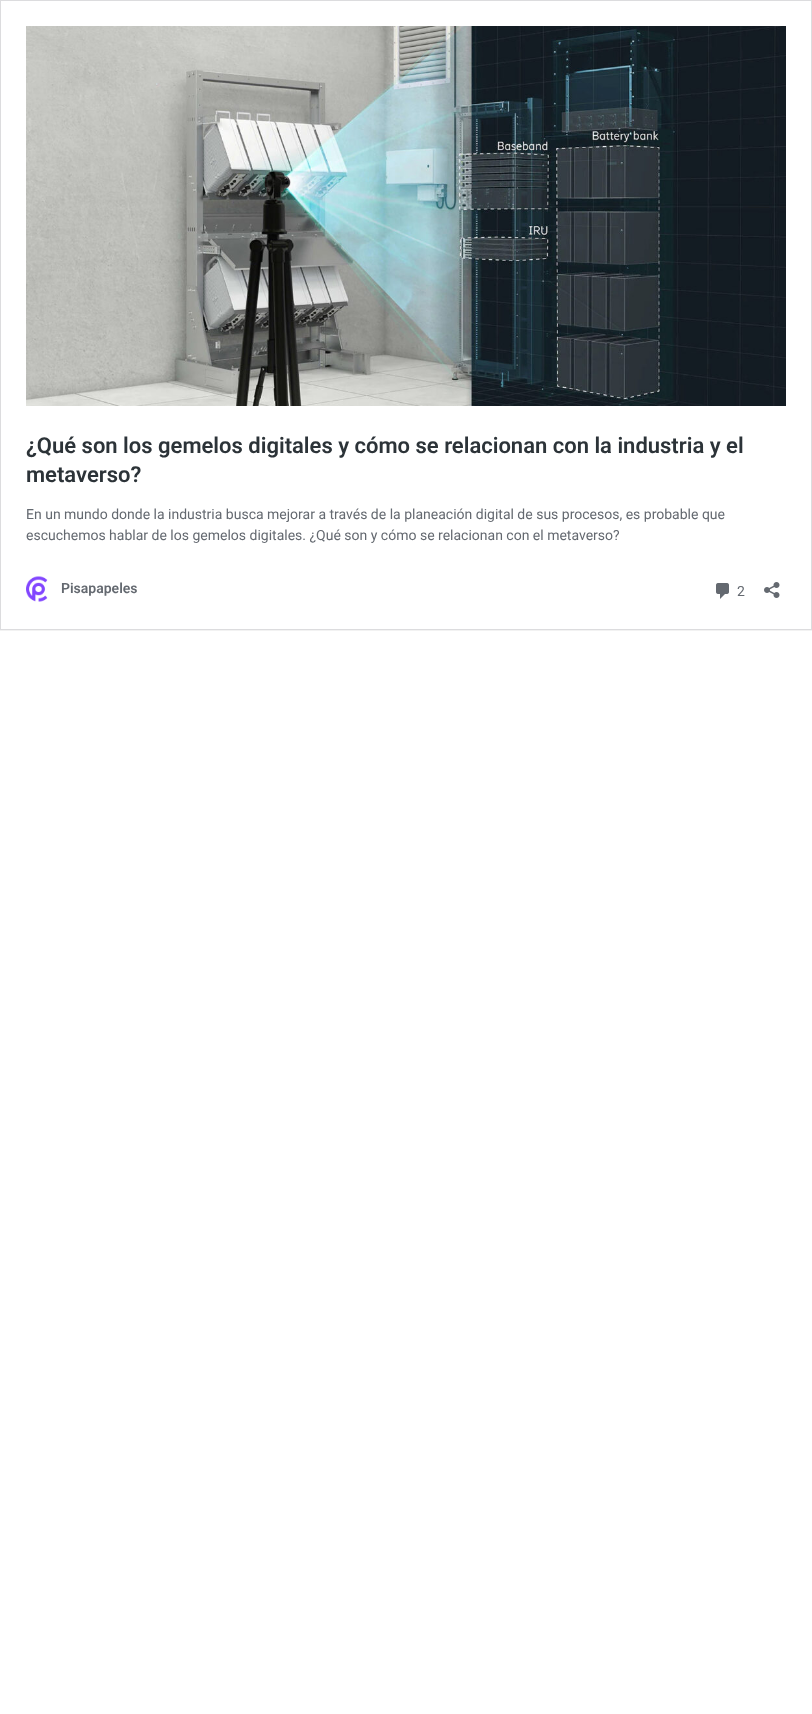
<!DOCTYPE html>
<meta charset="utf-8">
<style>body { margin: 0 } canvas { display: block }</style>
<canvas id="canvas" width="812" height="1714"></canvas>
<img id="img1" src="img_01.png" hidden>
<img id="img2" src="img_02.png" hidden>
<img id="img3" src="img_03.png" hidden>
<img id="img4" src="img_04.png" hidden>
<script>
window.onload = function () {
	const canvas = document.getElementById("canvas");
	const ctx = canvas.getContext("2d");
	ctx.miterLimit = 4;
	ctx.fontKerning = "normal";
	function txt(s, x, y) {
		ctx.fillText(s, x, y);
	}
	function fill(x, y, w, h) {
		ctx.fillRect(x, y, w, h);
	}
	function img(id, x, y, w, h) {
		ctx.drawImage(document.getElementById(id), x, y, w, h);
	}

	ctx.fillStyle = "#FFFFFF";
	fill(0, 0, 812, 1714);
	ctx.save();
	ctx.beginPath();
	ctx.rect(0, 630, 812, 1);
	ctx.clip();
	ctx.fillStyle = "rgba(0, 0, 0, 0.05)";
	ctx.filter = "blur(0.5px)";
	ctx.beginPath();
	ctx.rect(0, 1, 812, 630);
	ctx.fill();
	ctx.filter = "none";
	ctx.restore();
	ctx.strokeStyle = "#DCDCDE";
	ctx.strokeRect(0.5, 0.5, 811, 629);
	img("img1", 26, 26, 760, 380);
	img("img2", 26, 576, 22, 26);
	img("img3", 716, 583, 13, 16);
	img("img4", 764, 582, 16, 16);
	ctx.font = "600 22px Roboto";
	ctx.fillStyle = "#2C3338";
	txt("¿Qué son los gemelos digitales y cómo se relacionan con la industria y el", 26, 453);
	txt("metaverso?", 26, 482);
	ctx.font = "14px Roboto";
	ctx.fillStyle = "#646970";
	txt("En un mundo donde la industria busca mejorar a través de la planeación digital de sus procesos, es probable que", 26, 519);
	txt("escuchemos hablar de los gemelos digitales. ¿Qué son y cómo se relacionan con el metaverso?", 26, 540);
	ctx.font = "600 14px Roboto";
	txt("Pisapapeles", 61, 593);
	ctx.font = "14px Roboto";
	txt("2", 737, 596);
};
</script>
